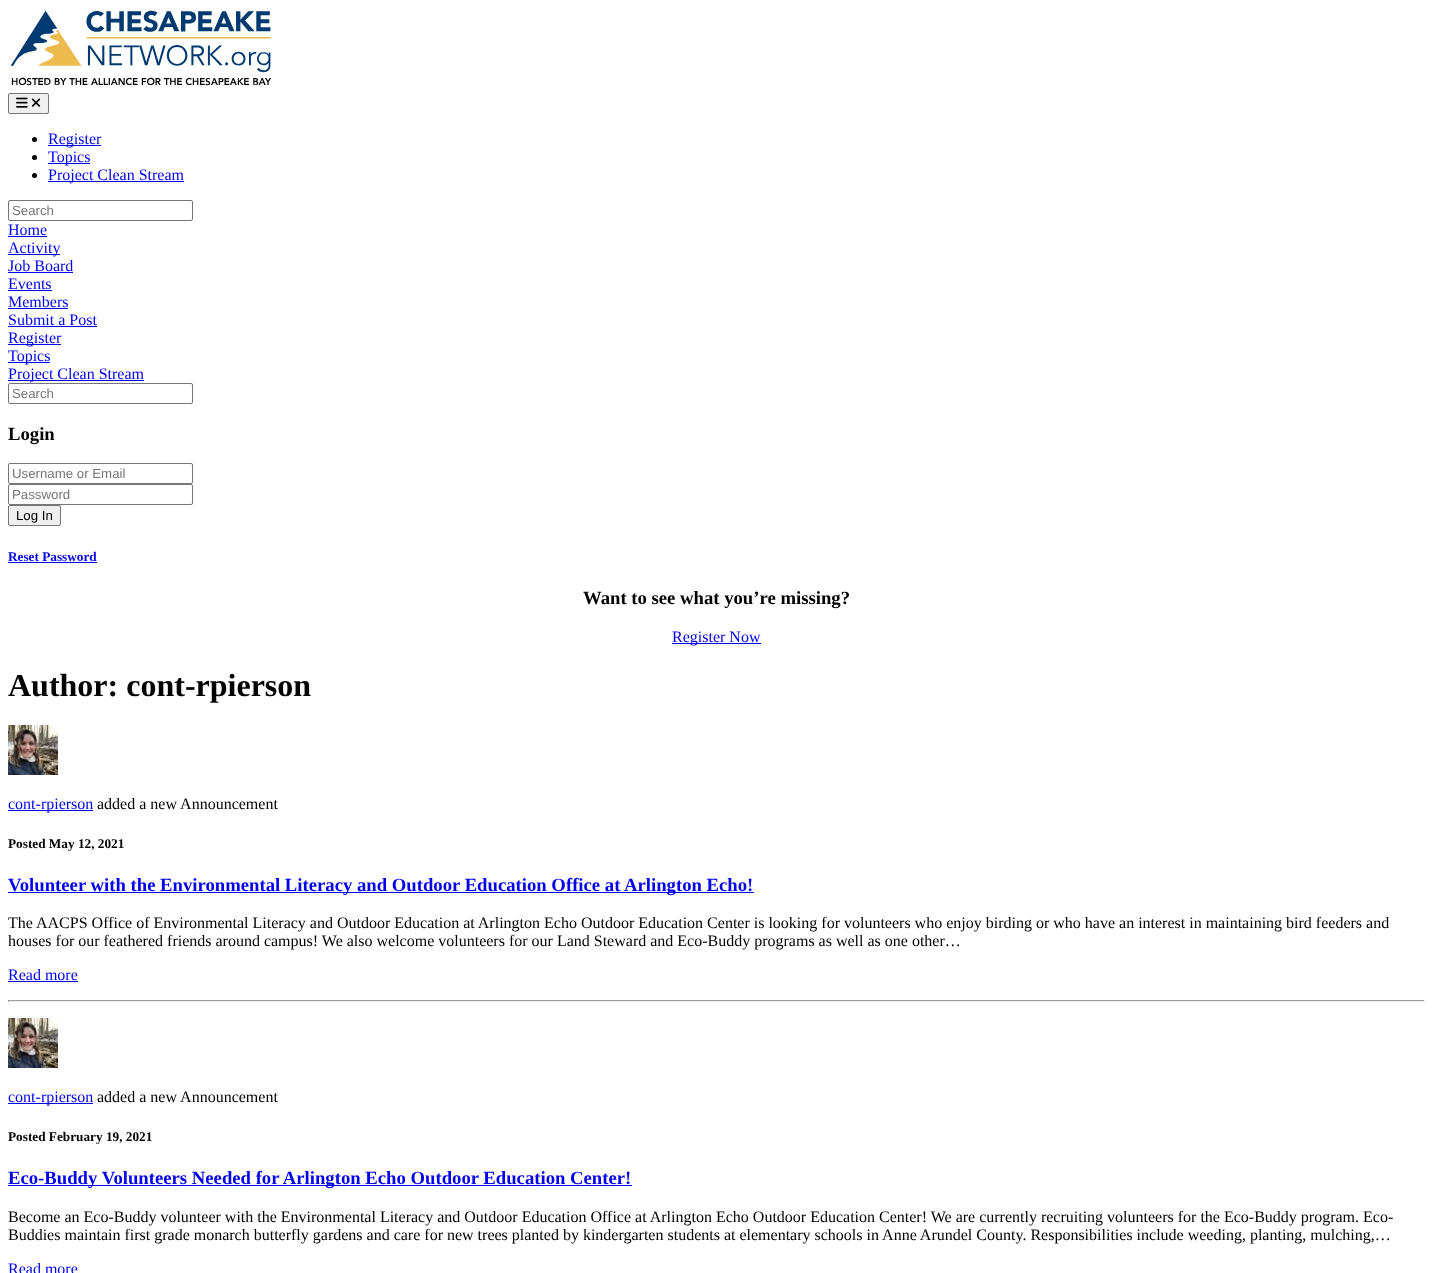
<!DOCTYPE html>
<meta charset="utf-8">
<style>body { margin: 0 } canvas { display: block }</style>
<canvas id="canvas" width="1433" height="1273"></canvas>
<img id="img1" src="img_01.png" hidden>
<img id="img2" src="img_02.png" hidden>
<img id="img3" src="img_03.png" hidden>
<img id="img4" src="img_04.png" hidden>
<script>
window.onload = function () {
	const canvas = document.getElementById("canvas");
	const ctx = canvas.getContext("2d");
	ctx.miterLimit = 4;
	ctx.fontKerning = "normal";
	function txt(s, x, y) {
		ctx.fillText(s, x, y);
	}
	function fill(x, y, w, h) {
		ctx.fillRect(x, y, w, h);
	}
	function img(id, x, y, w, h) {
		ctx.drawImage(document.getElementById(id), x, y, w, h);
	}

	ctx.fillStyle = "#FFFFFF";
	fill(0, 0, 1433, 1273);
	img("img1", 10, 10, 262, 76);
	ctx.fillStyle = "#EFEFEF";
	ctx.beginPath();
	ctx.roundRect(8.5, 93.5, 40, 20, 1.5);
	ctx.fill();
	ctx.strokeStyle = "#767676";
	ctx.stroke();
	img("img2", 16, 97, 12, 11);
	img("img3", 31, 98, 10, 9);
	ctx.fillStyle = "#000000";
	ctx.beginPath();
	ctx.arc(34.5, 139.5, 2.5, 0, Math.PI * 2);
	ctx.fill();
	ctx.fillStyle = "#0000EE";
	fill(48, 145, 53, 1);
	ctx.fillStyle = "#000000";
	ctx.beginPath();
	ctx.arc(34.5, 157.5, 2.5, 0, Math.PI * 2);
	ctx.fill();
	ctx.fillStyle = "#0000EE";
	fill(48, 163, 42, 1);
	ctx.fillStyle = "#000000";
	ctx.beginPath();
	ctx.arc(34.5, 175.5, 2.5, 0, Math.PI * 2);
	ctx.fill();
	ctx.fillStyle = "#0000EE";
	fill(48, 181, 136, 1);
	ctx.beginPath();
	ctx.roundRect(8.5, 200.5, 184, 20, 1.5);
	ctx.stroke();
	fill(8, 236, 39, 1);
	fill(8, 254, 52, 1);
	fill(8, 272, 65, 1);
	fill(8, 290, 44, 1);
	fill(8, 308, 60, 1);
	fill(8, 326, 89, 1);
	fill(8, 344, 53, 1);
	fill(8, 362, 42, 1);
	fill(8, 380, 136, 1);
	ctx.beginPath();
	ctx.roundRect(8.5, 383.5, 184, 20, 1.5);
	ctx.stroke();
	ctx.beginPath();
	ctx.roundRect(8.5, 463.5, 184, 20, 1.5);
	ctx.stroke();
	ctx.beginPath();
	ctx.roundRect(8.5, 484.5, 184, 20, 1.5);
	ctx.stroke();
	ctx.fillStyle = "#EFEFEF";
	ctx.beginPath();
	ctx.roundRect(8.5, 505.5, 52, 20, 1.5);
	ctx.fill();
	ctx.stroke();
	ctx.fillStyle = "#0000EE";
	fill(8, 562, 89, 1);
	fill(672, 643, 89, 1);
	img("img4", 8, 725, 50, 50);
	fill(8, 810, 85, 1);
	fill(8, 892, 746, 1);
	fill(8, 981, 70, 1);
	ctx.fillStyle = "#9F9F9F";
	fill(8, 1000, 1417, 1);
	ctx.fillStyle = "#EEEEEE";
	fill(1424, 1000, 1, 2);
	fill(8, 1001, 1417, 1);
	ctx.fillStyle = "#9F9F9F";
	fill(8, 1000, 1, 2);
	img("img4", 8, 1018, 50, 50);
	ctx.fillStyle = "#0000EE";
	fill(8, 1103, 85, 1);
	fill(8, 1185, 624, 1);
	ctx.font = "16px Liberation Serif";
	txt("Register", 48, 144);
	txt("Topics", 48, 162);
	txt("Project Clean Stream", 48, 180);
	ctx.font = "13.25px Liberation Sans";
	ctx.fillStyle = "#757575";
	txt("Search", 12, 215);
	ctx.font = "16px Liberation Serif";
	ctx.fillStyle = "#0000EE";
	txt("Home", 8, 235);
	txt("Activity", 8, 253);
	txt("Job Board", 8, 271);
	txt("Events", 8, 289);
	txt("Members", 8, 307);
	txt("Submit a Post", 8, 325);
	txt("Register", 8, 343);
	txt("Topics", 8, 361);
	txt("Project Clean Stream", 8, 379);
	ctx.font = "13.25px Liberation Sans";
	ctx.fillStyle = "#757575";
	txt("Search", 12, 398);
	ctx.font = "bold 18.7px Liberation Serif";
	ctx.fillStyle = "#000000";
	txt("Login", 8, 440);
	ctx.font = "13.25px Liberation Sans";
	ctx.fillStyle = "#757575";
	txt("Username or Email", 12, 478);
	txt("Password", 12, 499);
	ctx.fillStyle = "#000000";
	txt("Log In", 16, 520);
	ctx.font = "bold 13.25px Liberation Serif";
	ctx.fillStyle = "#0000EE";
	txt("Reset Password", 8, 561);
	ctx.font = "bold 18.7px Liberation Serif";
	ctx.fillStyle = "#000000";
	txt("Want to see what you’re missing?", 583, 604);
	ctx.font = "16px Liberation Serif";
	ctx.fillStyle = "#0000EE";
	txt("Register Now", 672, 642);
	ctx.font = "bold 32px Liberation Serif";
	ctx.fillStyle = "#000000";
	txt("Author: cont-rpierson", 8, 696);
	ctx.font = "16px Liberation Serif";
	ctx.fillStyle = "#0000EE";
	txt("cont-rpierson", 8, 809);
	ctx.fillStyle = "#000000";
	txt("added a new Announcement", 97, 809);
	ctx.font = "bold 13.25px Liberation Serif";
	txt("Posted May 12, 2021", 8, 848);
	ctx.font = "bold 18.7px Liberation Serif";
	ctx.fillStyle = "#0000EE";
	txt("Volunteer with the Environmental Literacy and Outdoor Education Office at Arlington Echo!", 8, 891);
	ctx.font = "16px Liberation Serif";
	ctx.fillStyle = "#000000";
	txt("The AACPS Office of Environmental Literacy and Outdoor Education at Arlington Echo Outdoor Education Center is looking for volunteers who enjoy birding or who have an interest in maintaining bird feeders and", 8, 928);
	txt("houses for our feathered friends around campus! We also welcome volunteers for our Land Steward and Eco-Buddy programs as well as one other…", 8, 946);
	ctx.fillStyle = "#0000EE";
	txt("Read more", 8, 980);
	txt("cont-rpierson", 8, 1102);
	ctx.fillStyle = "#000000";
	txt("added a new Announcement", 97, 1102);
	ctx.font = "bold 13.25px Liberation Serif";
	txt("Posted February 19, 2021", 8, 1141);
	ctx.font = "bold 18.7px Liberation Serif";
	ctx.fillStyle = "#0000EE";
	txt("Eco-Buddy Volunteers Needed for Arlington Echo Outdoor Education Center!", 8, 1184);
	ctx.font = "16px Liberation Serif";
	ctx.fillStyle = "#000000";
	txt("Become an Eco-Buddy volunteer with the Environmental Literacy and Outdoor Education Office at Arlington Echo Outdoor Education Center! We are currently recruiting volunteers for the Eco-Buddy program. Eco-", 8, 1222);
	txt("Buddies maintain first grade monarch butterfly gardens and care for new trees planted by kindergarten students at elementary schools in Anne Arundel County. Responsibilities include weeding, planting, mulching,…", 8, 1240);
	ctx.fillStyle = "#0000EE";
	txt("Read more", 8, 1274);
};
</script>
